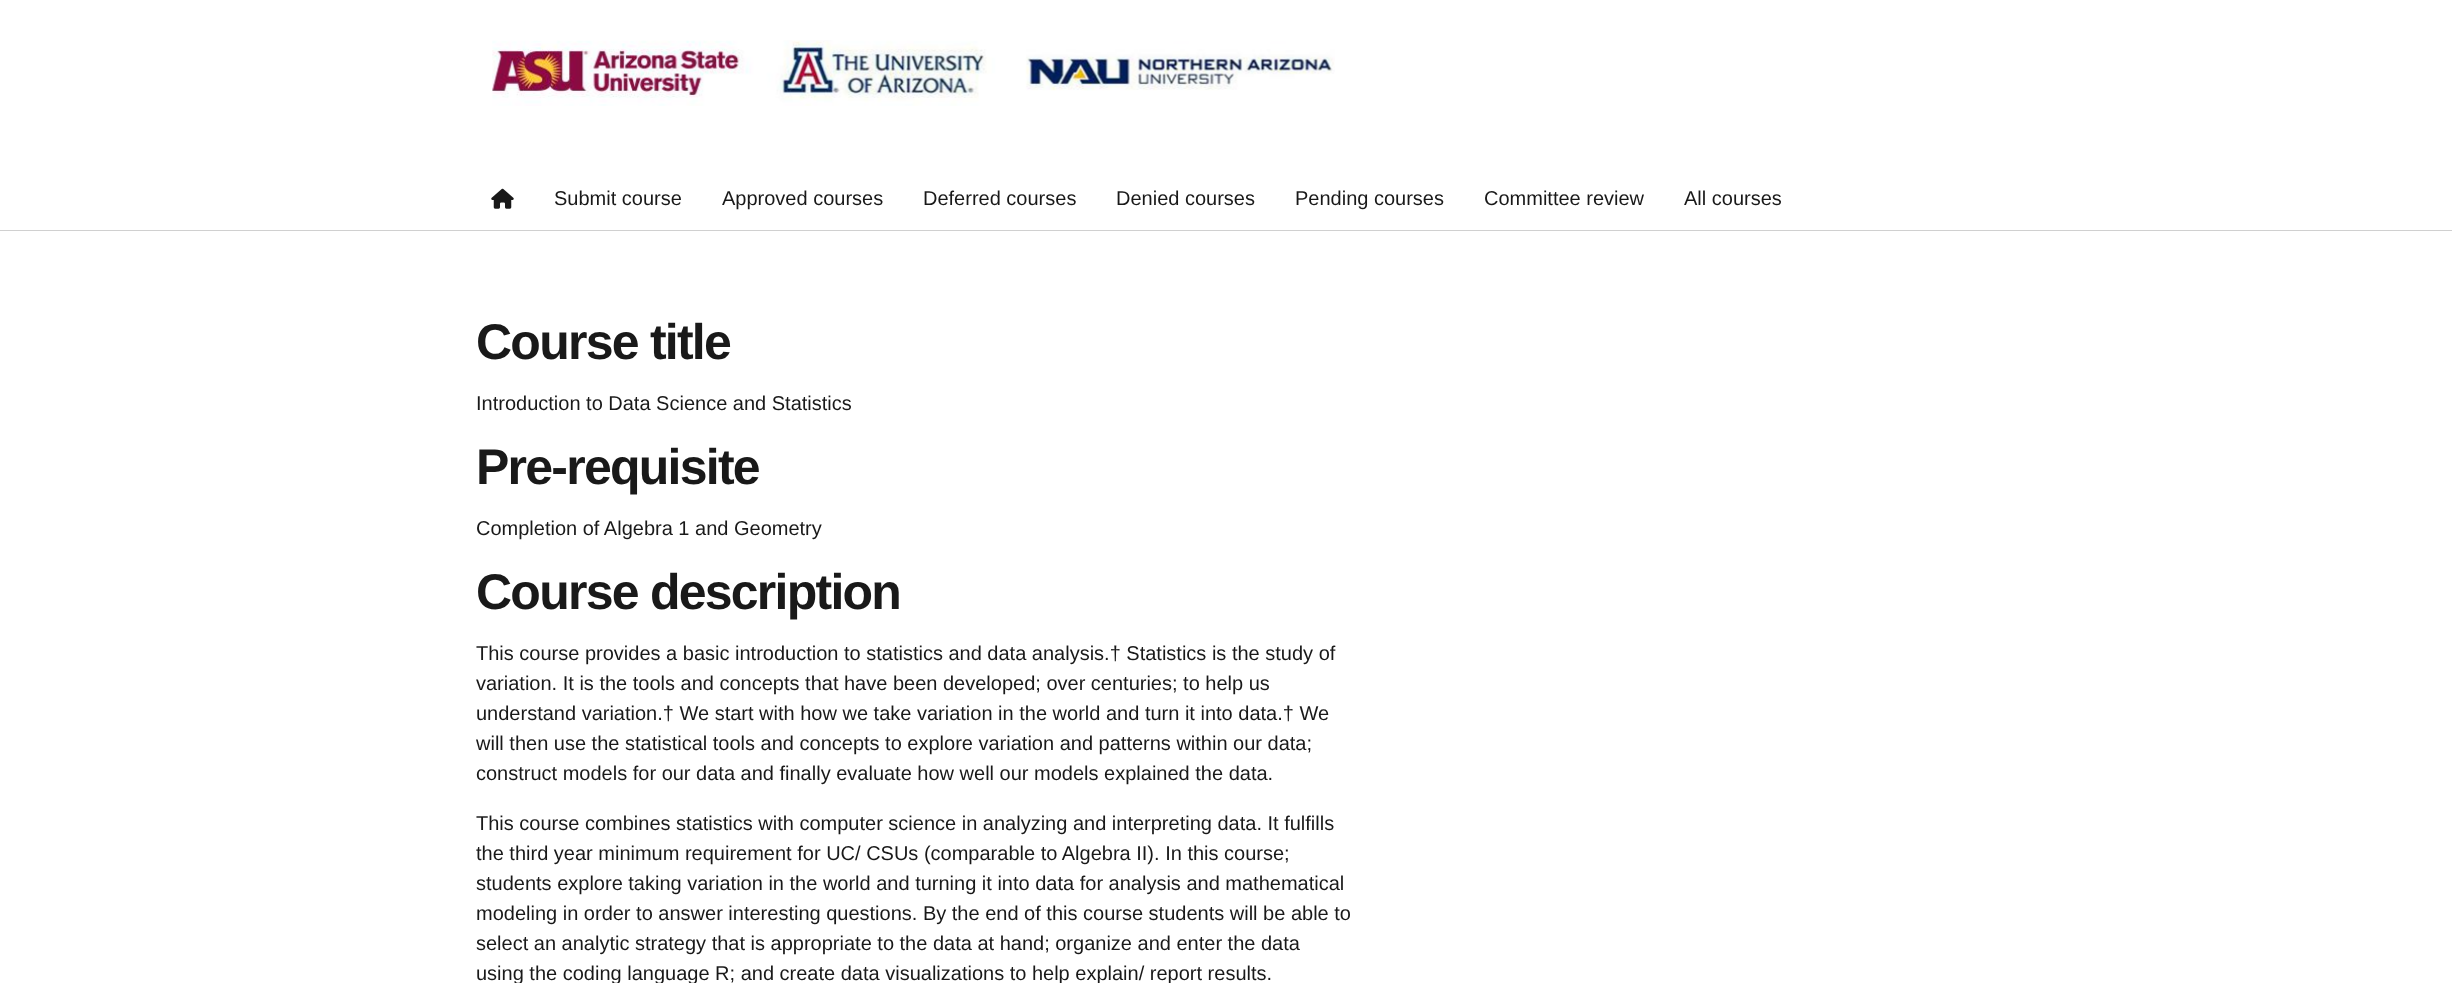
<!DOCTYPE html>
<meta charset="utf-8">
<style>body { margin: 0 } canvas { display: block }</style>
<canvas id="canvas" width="2452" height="983"></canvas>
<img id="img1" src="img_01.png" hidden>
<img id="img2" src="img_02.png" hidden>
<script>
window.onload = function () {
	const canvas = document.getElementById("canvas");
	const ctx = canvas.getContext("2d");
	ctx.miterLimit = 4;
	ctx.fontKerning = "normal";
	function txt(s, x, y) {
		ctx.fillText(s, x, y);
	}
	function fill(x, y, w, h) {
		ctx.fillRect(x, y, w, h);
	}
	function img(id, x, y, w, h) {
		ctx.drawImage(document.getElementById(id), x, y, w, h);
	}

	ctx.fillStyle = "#FFFFFF";
	fill(0, 0, 2452, 983);
	ctx.fillStyle = "#D0D0D0";
	fill(0, 230, 2452, 1);
	img("img1", 492, 40, 843, 66);
	img("img2", 491, 188, 23, 21);
	ctx.font = "20px Liberation Sans";
	ctx.fillStyle = "#191919";
	txt("Submit course", 554, 205);
	txt("Approved courses", 722, 205);
	txt("Deferred courses", 923, 205);
	txt("Denied courses", 1116, 205);
	txt("Pending courses", 1295, 205);
	txt("Committee review", 1484, 205);
	txt("All courses", 1684, 205);
	ctx.letterSpacing = "-1.75px";
	ctx.font = "bold 50px Liberation Sans";
	txt("Course title", 476, 359);
	ctx.letterSpacing = "0px";
	ctx.font = "20px Liberation Sans";
	txt("Introduction to Data Science and Statistics", 476, 410);
	ctx.letterSpacing = "-1.75px";
	ctx.font = "bold 50px Liberation Sans";
	txt("Pre-requisite", 476, 484);
	ctx.letterSpacing = "0px";
	ctx.font = "20px Liberation Sans";
	txt("Completion of Algebra 1 and Geometry", 476, 535);
	ctx.letterSpacing = "-1.75px";
	ctx.font = "bold 50px Liberation Sans";
	txt("Course description", 476, 609);
	ctx.letterSpacing = "0px";
	ctx.font = "20px Liberation Sans";
	txt("This course provides a basic introduction to statistics and data analysis.† Statistics is the study of", 476, 660);
	txt("variation. It is the tools and concepts that have been developed; over centuries; to help us", 476, 690);
	txt("understand variation.† We start with how we take variation in the world and turn it into data.† We", 476, 720);
	txt("will then use the statistical tools and concepts to explore variation and patterns within our data;", 476, 750);
	txt("construct models for our data and finally evaluate how well our models explained the data.", 476, 780);
	txt("This course combines statistics with computer science in analyzing and interpreting data. It fulfills", 476, 830);
	txt("the third year minimum requirement for UC/ CSUs (comparable to Algebra II). In this course;", 476, 860);
	txt("students explore taking variation in the world and turning it into data for analysis and mathematical", 476, 890);
	txt("modeling in order to answer interesting questions. By the end of this course students will be able to", 476, 920);
	txt("select an analytic strategy that is appropriate to the data at hand; organize and enter the data", 476, 950);
	txt("using the coding language R; and create data visualizations to help explain/ report results.", 476, 980);
};
</script>
